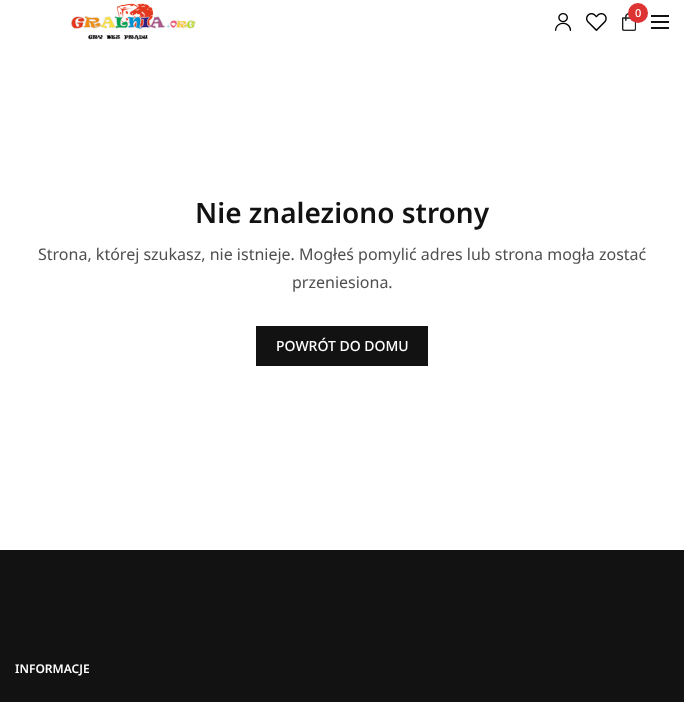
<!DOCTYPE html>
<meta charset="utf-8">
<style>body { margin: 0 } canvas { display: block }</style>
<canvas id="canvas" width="684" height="702"></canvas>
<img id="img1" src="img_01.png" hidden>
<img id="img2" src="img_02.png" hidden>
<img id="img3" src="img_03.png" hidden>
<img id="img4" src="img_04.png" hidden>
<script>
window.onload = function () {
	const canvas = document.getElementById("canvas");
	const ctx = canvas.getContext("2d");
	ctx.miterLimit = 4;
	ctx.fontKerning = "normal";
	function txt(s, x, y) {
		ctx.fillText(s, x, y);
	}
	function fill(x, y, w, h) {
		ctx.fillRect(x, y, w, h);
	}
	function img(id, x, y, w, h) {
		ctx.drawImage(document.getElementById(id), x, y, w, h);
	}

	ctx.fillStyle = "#FFFFFF";
	fill(0, 0, 684, 702);
	img("img1", 71, 3, 125, 37);
	img("img2", 555, 13, 16, 18);
	img("img3", 586, 13, 21, 18);
	img("img4", 622, 13, 14, 18);
	ctx.fillStyle = "#DD3333";
	ctx.beginPath();
	ctx.arc(638, 13, 10, 0, Math.PI * 2);
	ctx.fill();
	ctx.fillStyle = "#121212";
	fill(651, 15, 18, 2);
	fill(651, 21, 18, 2);
	fill(651, 27, 18, 2);
	fill(256, 326, 172, 40);
	fill(0, 550, 684, 152);
	ctx.font = "500 11px Noto Sans";
	ctx.fillStyle = "#FFFFFF";
	txt("0", 635, 17);
	ctx.font = "600 28px Noto Sans";
	ctx.fillStyle = "#121212";
	txt("Nie znaleziono strony", 195, 223);
	ctx.font = "16px Noto Sans";
	ctx.fillStyle = "#4F4F4F";
	txt("Strona, której szukasz, nie istnieje. Mogłeś pomylić adres lub strona mogła zostać", 38, 260);
	txt("przeniesiona.", 292, 288);
	ctx.font = "500 14px Noto Sans";
	ctx.fillStyle = "#FFFFFF";
	txt("POWRÓT DO DOMU", 276, 351);
	ctx.font = "600 12px Noto Sans";
	txt("INFORMACJE", 15, 673);
};
</script>
